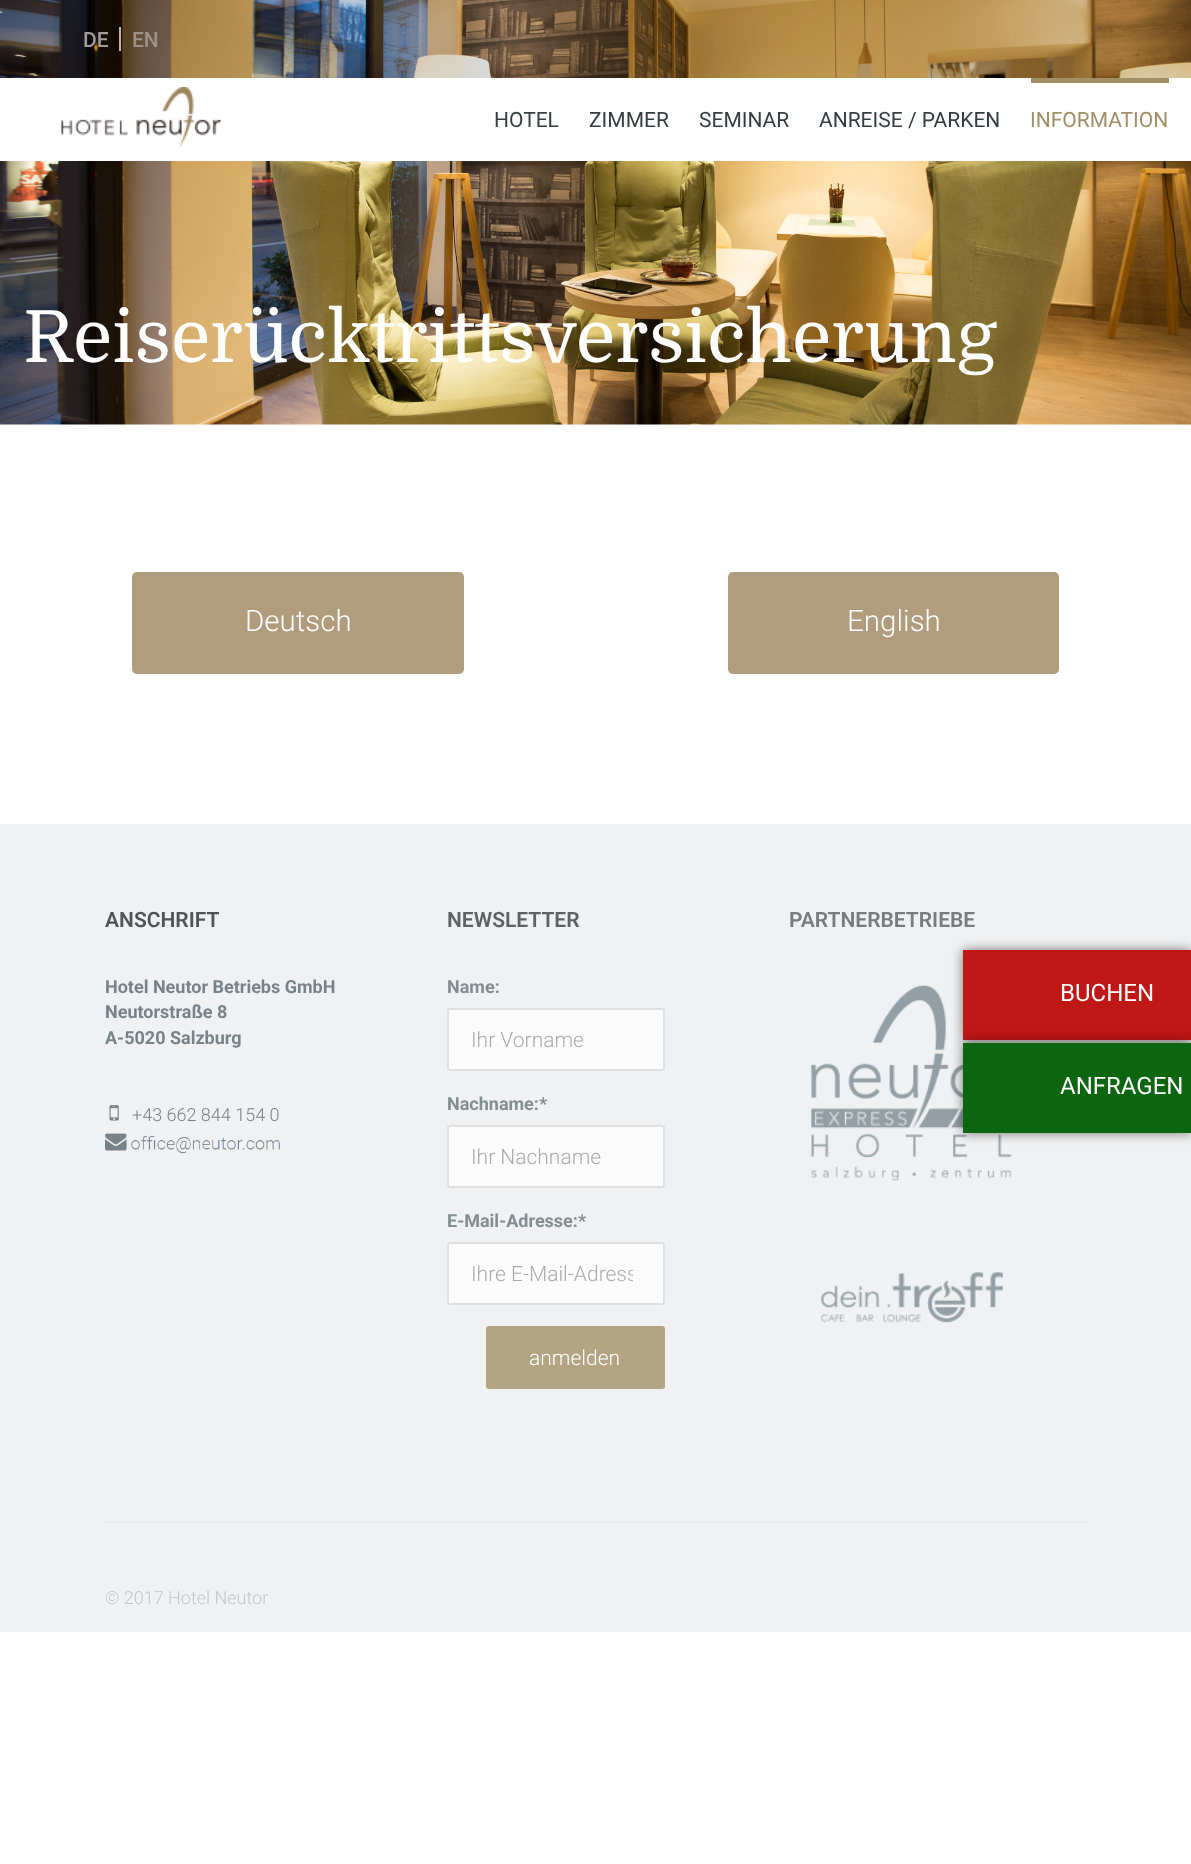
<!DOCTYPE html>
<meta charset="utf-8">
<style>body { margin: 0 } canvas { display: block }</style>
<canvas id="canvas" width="1191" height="1864"></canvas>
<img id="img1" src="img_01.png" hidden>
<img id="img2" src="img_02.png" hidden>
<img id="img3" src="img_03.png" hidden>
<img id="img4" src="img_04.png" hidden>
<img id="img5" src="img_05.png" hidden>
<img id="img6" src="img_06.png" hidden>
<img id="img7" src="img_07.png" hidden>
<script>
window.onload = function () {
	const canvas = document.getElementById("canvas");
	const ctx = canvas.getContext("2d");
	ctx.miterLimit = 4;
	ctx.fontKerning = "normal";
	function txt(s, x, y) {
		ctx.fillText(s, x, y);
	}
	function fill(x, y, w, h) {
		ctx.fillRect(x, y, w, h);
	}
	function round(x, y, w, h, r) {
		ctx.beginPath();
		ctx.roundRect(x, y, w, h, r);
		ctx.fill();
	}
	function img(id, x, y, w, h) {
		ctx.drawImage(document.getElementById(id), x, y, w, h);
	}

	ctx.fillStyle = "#FFFFFF";
	fill(0, 0, 1191, 1864);
	img("img1", 0, 0, 1191, 425);
	ctx.fillStyle = "rgba(0, 0, 0, 0.15)";
	fill(0, 0, 1191, 78);
	ctx.fillStyle = "rgba(225, 225, 225, 0.8)";
	fill(119, 27, 2, 24);
	ctx.fillStyle = "#FFFFFF";
	fill(0, 78, 1191, 83);
	img("img2", 61, 87, 160, 60);
	ctx.fillStyle = "#A38F65";
	fill(1031, 78, 138, 5);
	ctx.fillStyle = "#B19D7D";
	round(132, 572, 332, 102, 5);
	round(728, 572, 331, 102, 5);
	ctx.fillStyle = "#F0F1F2";
	fill(0, 824, 1191, 808);
	img("img3", 109, 1105, 10, 16);
	img("img4", 105, 1133, 22, 18);
	img("img5", 131, 1135, 149, 19);
	ctx.fillStyle = "#FCFCFC";
	round(447, 1008, 218, 63, 3);
	ctx.beginPath();
	ctx.roundRect(448, 1009, 216, 61, 2);
	ctx.strokeStyle = "rgba(131, 141, 146, 0.25)";
	ctx.lineWidth = 2;
	ctx.stroke();
	round(447, 1125, 218, 63, 3);
	ctx.beginPath();
	ctx.roundRect(448, 1126, 216, 61, 2);
	ctx.stroke();
	round(447, 1242, 218, 63, 3);
	ctx.beginPath();
	ctx.roundRect(448, 1243, 216, 61, 2);
	ctx.stroke();
	ctx.fillStyle = "#B3A483";
	ctx.beginPath();
	ctx.roundRect(487, 1327, 177, 61, 2);
	ctx.fill();
	ctx.strokeStyle = "#B3A483";
	ctx.stroke();
	img("img6", 811, 985, 201, 196);
	img("img7", 821, 1272, 182, 51);
	ctx.fillStyle = "#EAEBEC";
	fill(105, 1521, 981, 2);
	ctx.fillStyle = "rgba(0, 0, 0, 0.5)";
	ctx.filter = "blur(6px)";
	ctx.beginPath();
	ctx.rect(963, 950, 228, 90);
	ctx.fill();
	ctx.filter = "none";
	ctx.fillStyle = "#BF1616";
	fill(963, 950, 228, 90);
	ctx.fillStyle = "rgba(0, 0, 0, 0.5)";
	ctx.filter = "blur(6px)";
	ctx.beginPath();
	ctx.rect(963, 1043, 228, 90);
	ctx.fill();
	ctx.filter = "none";
	ctx.fillStyle = "#0C6610";
	fill(963, 1043, 228, 90);
	ctx.font = "500 21px Roboto";
	ctx.fillStyle = "#A09E9D";
	txt("DE", 83, 47);
	ctx.fillStyle = "#9E9187";
	txt("EN", 132, 47);
	ctx.font = "21px Roboto";
	ctx.fillStyle = "#363D40";
	txt("HOTEL", 494, 127);
	txt("ZIMMER", 589, 127);
	txt("SEMINAR", 699, 127);
	txt("ANREISE / PARKEN", 819, 127);
	ctx.fillStyle = "#A38F65";
	txt("INFORMATION", 1030, 127);
	ctx.font = "72px Domine";
	ctx.fillStyle = "#FFFFFF";
	txt("Reiserücktrittsversicherung", 23, 362);
	ctx.font = "300 29.5px Roboto";
	txt("Deutsch", 245, 631);
	txt("English", 847, 631);
	ctx.font = "600 21px Roboto";
	ctx.fillStyle = "#4E5557";
	txt("ANSCHRIFT", 105, 927);
	ctx.font = "bold 18px Roboto";
	ctx.fillStyle = "#788389";
	txt("Hotel Neutor Betriebs GmbH", 105, 993);
	txt("Neutorstraße 8", 105, 1018);
	txt("A-5020 Salzburg", 105, 1044);
	ctx.font = "300 18px Roboto";
	txt("+43 662 844 154 0", 132, 1121);
	ctx.font = "600 21px Roboto";
	ctx.fillStyle = "#5D6365";
	txt("NEWSLETTER", 447, 927);
	ctx.font = "bold 18px Roboto";
	ctx.fillStyle = "#838D92";
	txt("Name:", 447, 993);
	ctx.font = "300 21px Roboto";
	ctx.fillStyle = "#ABABAC";
	txt("Ihr Vorname", 471, 1047);
	ctx.font = "bold 18px Roboto";
	ctx.fillStyle = "#838D92";
	txt("Nachname:*", 447, 1110);
	ctx.font = "300 21px Roboto";
	ctx.fillStyle = "#ABABAC";
	txt("Ihr Nachname", 471, 1164);
	ctx.font = "bold 18px Roboto";
	ctx.fillStyle = "#838D92";
	txt("E-Mail-Adresse:*", 447, 1227);
	ctx.save();
	ctx.beginPath();
	ctx.rect(471, 1262, 162, 24);
	ctx.clip();
	ctx.font = "300 21px Roboto";
	ctx.fillStyle = "#ABABAC";
	txt("Ihre E-Mail-Adress", 471, 1281);
	ctx.restore();
	ctx.font = "300 21px Roboto";
	ctx.fillStyle = "#FFFFFF";
	txt("anmelden", 529, 1365);
	ctx.font = "600 21px Roboto";
	ctx.fillStyle = "#777C7E";
	txt("PARTNERBETRIEBE", 789, 927);
	ctx.font = "300 18px Roboto";
	ctx.fillStyle = "#C2C7CA";
	txt("© 2017 Hotel Neutor", 105, 1604);
	ctx.font = "24px Roboto";
	ctx.fillStyle = "#FFFFFF";
	txt("BUCHEN", 1060, 1001);
	txt("ANFRAGEN", 1060, 1094);
};
</script>
